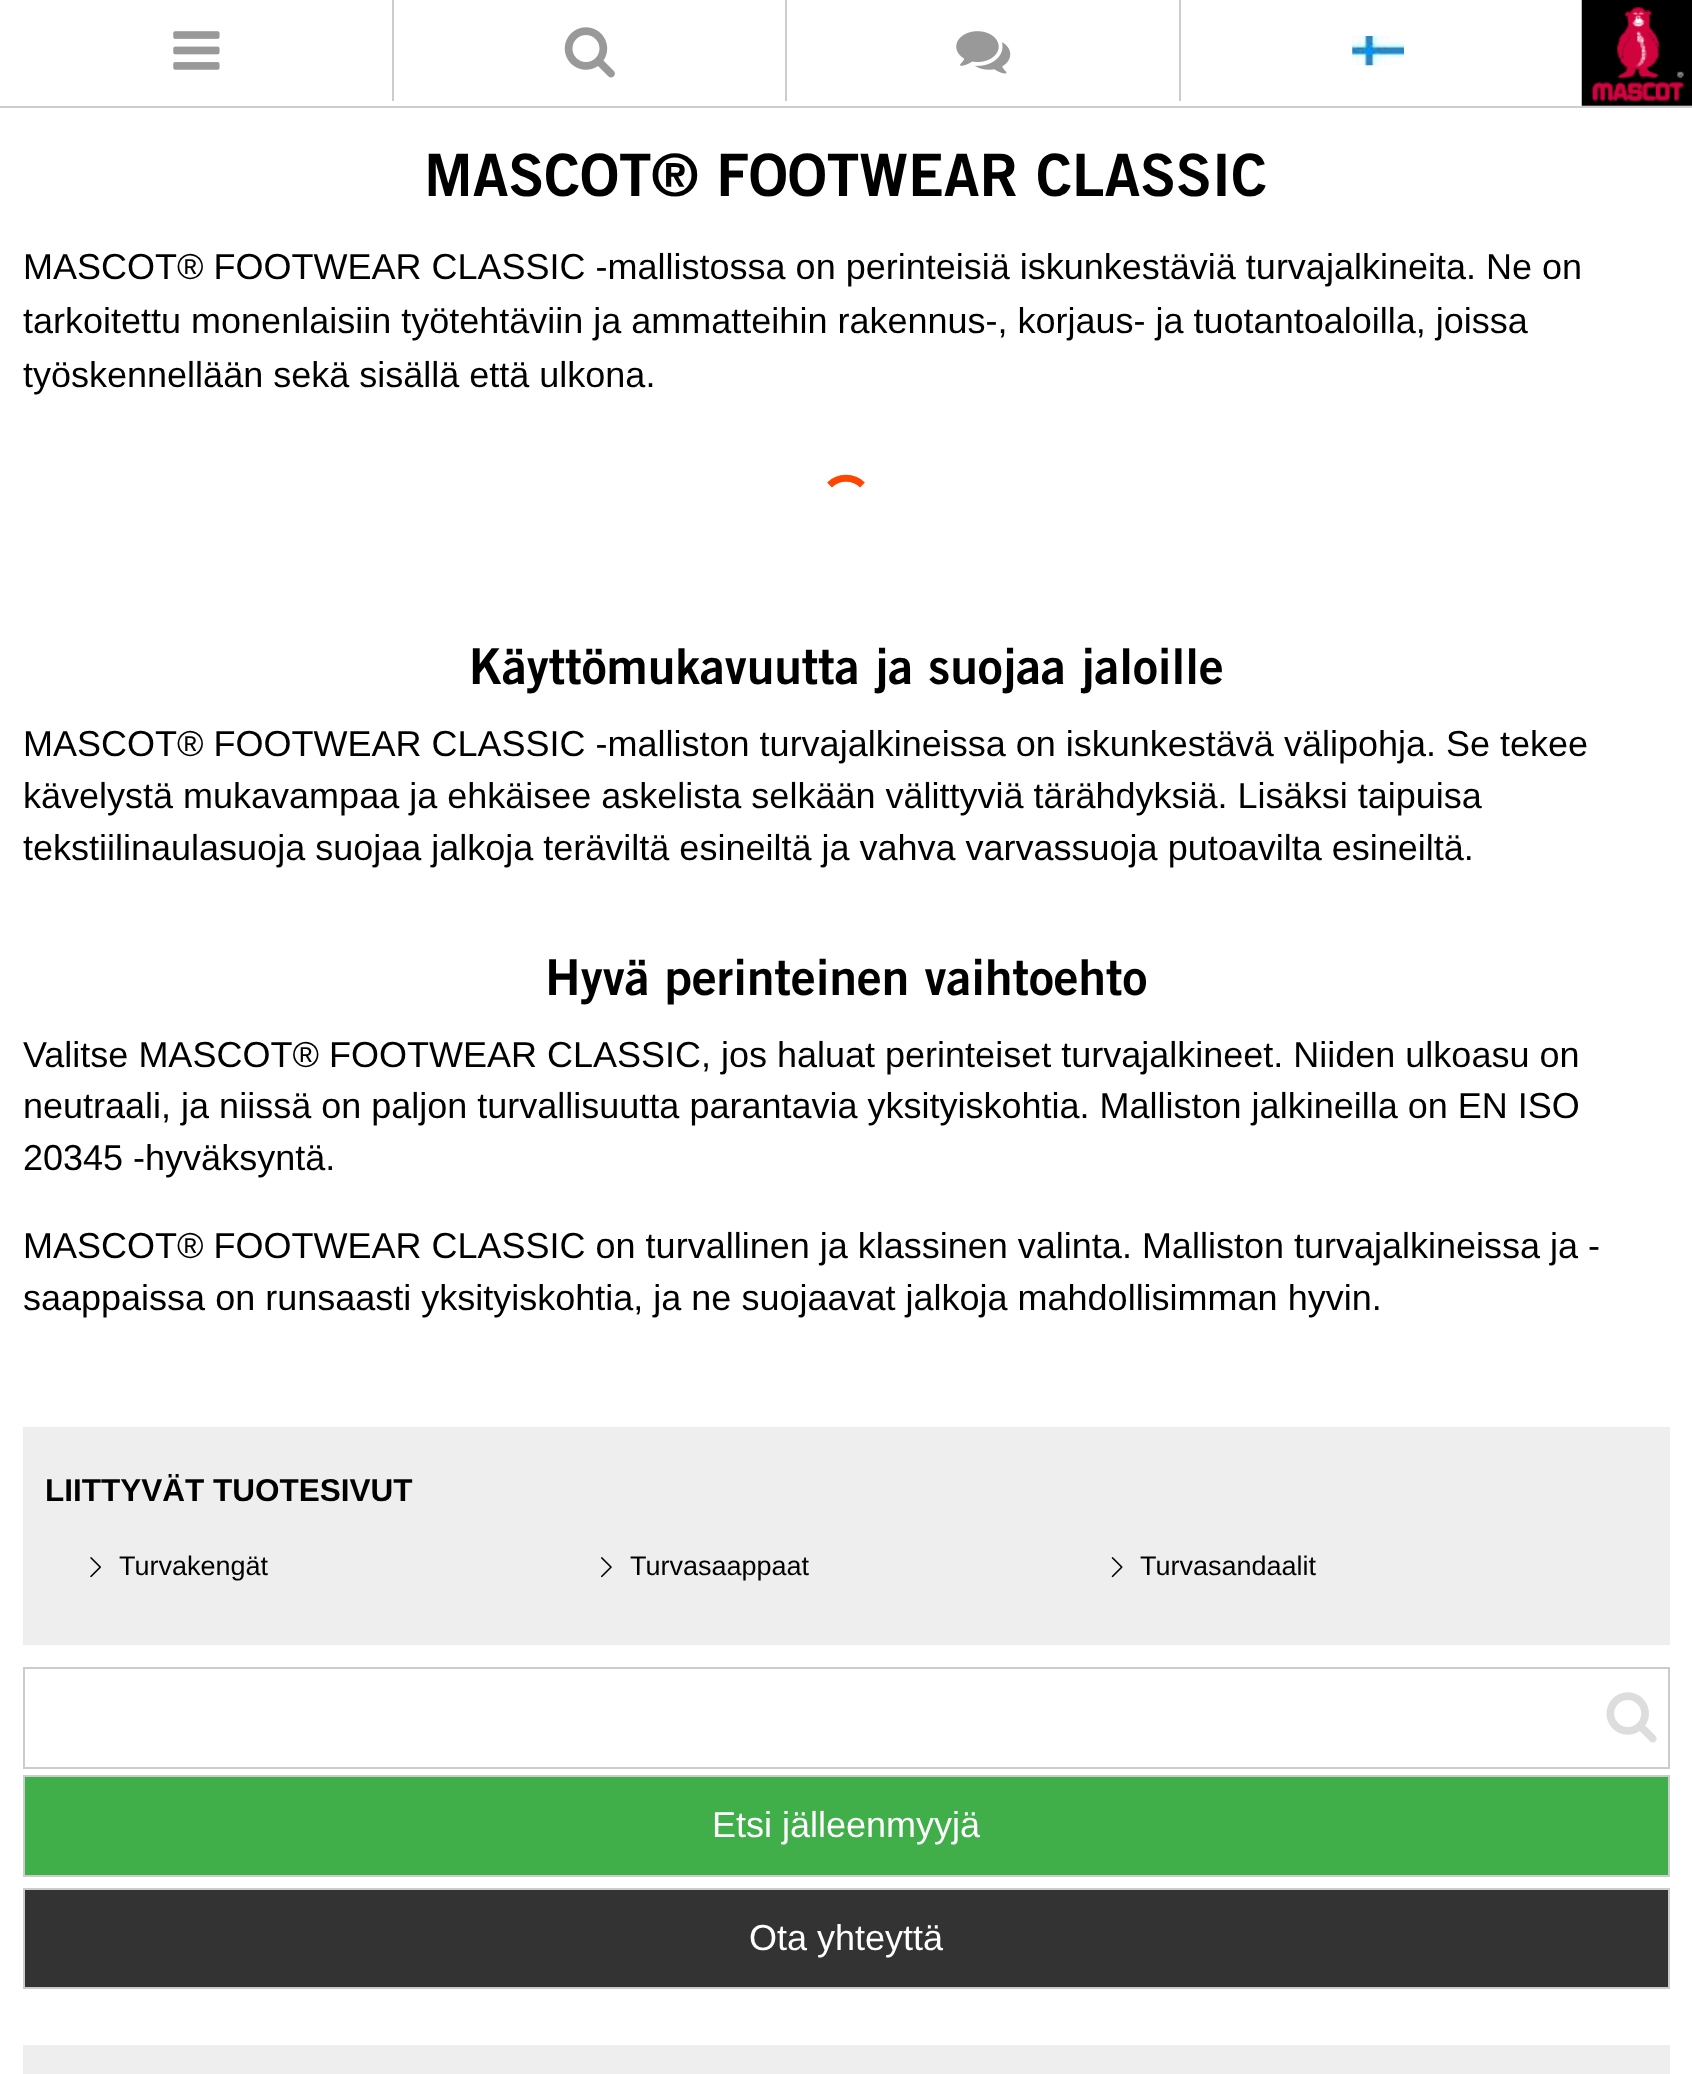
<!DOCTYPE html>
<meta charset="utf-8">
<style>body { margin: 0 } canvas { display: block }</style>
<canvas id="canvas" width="1692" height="2074"></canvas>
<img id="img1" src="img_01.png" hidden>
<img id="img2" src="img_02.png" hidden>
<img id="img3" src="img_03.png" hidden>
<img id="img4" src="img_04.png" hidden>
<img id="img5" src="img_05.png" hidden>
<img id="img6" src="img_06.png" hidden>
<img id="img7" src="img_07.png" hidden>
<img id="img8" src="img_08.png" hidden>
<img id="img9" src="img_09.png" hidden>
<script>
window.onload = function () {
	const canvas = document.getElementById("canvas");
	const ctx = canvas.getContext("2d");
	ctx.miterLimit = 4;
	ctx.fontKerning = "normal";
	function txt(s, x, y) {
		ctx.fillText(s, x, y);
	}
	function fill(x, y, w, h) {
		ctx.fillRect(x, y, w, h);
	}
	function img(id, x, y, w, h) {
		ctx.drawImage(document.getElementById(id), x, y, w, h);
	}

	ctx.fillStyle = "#FFFFFF";
	fill(0, 0, 1692, 2074);
	ctx.fillStyle = "#CCCCCC";
	fill(0, 106, 1692, 2);
	fill(392, 0, 2, 101);
	img("img1", 173, 31, 47, 39);
	fill(785, 0, 2, 101);
	img("img2", 564, 27, 51, 51);
	fill(1179, 0, 2, 101);
	img("img3", 956, 31, 55, 43);
	img("img4", 1352, 36, 52, 30);
	img("img5", 1581, 0, 111, 106);
	ctx.beginPath();
	ctx.moveTo(829.5, 485);
	ctx.bezierCurveTo(838.5, 476, 853.5, 476, 862.5, 485);
	ctx.moveTo(829.5, 485);
	ctx.bezierCurveTo(838.5, 476, 853.5, 476, 862.5, 485);
	ctx.moveTo(829.5, 485);
	ctx.bezierCurveTo(838.5, 476, 853.5, 476, 862.5, 485);
	ctx.moveTo(829.5, 485);
	ctx.bezierCurveTo(838.5, 476, 853.5, 476, 862.5, 485);
	ctx.strokeStyle = "#FF4500";
	ctx.lineWidth = 6.8;
	ctx.stroke();
	ctx.fillStyle = "#EEEEEE";
	fill(23, 1427, 1647, 218);
	img("img6", 90, 1557, 11, 21);
	img("img7", 601, 1557, 11, 21);
	img("img8", 1111, 1557, 12, 21);
	ctx.strokeStyle = "#CCCCCC";
	ctx.lineWidth = 2;
	ctx.strokeRect(24, 1668, 1645, 100);
	img("img9", 1606, 1692, 51, 51);
	ctx.fillStyle = "#40AE49";
	ctx.beginPath();
	ctx.rect(24, 1776, 1645, 100);
	ctx.fill();
	ctx.stroke();
	ctx.fillStyle = "#333333";
	ctx.beginPath();
	ctx.rect(24, 1889, 1645, 99);
	ctx.fill();
	ctx.stroke();
	ctx.fillStyle = "#EEEEEE";
	fill(23, 2045, 1647, 29);
	ctx.font = "bold 58.5px 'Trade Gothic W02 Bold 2'";
	ctx.fillStyle = "#000000";
	txt("MASCOT® FOOTWEAR CLASSIC", 424, 196);
	ctx.font = "36px Liberation Sans";
	txt("MASCOT® FOOTWEAR CLASSIC -mallistossa on perinteisiä iskunkestäviä turvajalkineita. Ne on", 23, 279);
	txt("tarkoitettu monenlaisiin työtehtäviin ja ammatteihin rakennus-, korjaus- ja tuotantoaloilla, joissa", 23, 333);
	txt("työskennellään sekä sisällä että ulkona.", 23, 387);
	ctx.font = "bold 49.5px 'Trade Gothic W02 Bold 2'";
	txt("Käyttömukavuutta ja suojaa jaloille", 469, 684);
	ctx.font = "36px Liberation Sans";
	txt("MASCOT® FOOTWEAR CLASSIC -malliston turvajalkineissa on iskunkestävä välipohja. Se tekee", 23, 756);
	txt("kävelystä mukavampaa ja ehkäisee askelista selkään välittyviä tärähdyksiä. Lisäksi taipuisa", 23, 808);
	txt("tekstiilinaulasuoja suojaa jalkoja teräviltä esineiltä ja vahva varvassuoja putoavilta esineiltä.", 23, 860);
	ctx.font = "bold 49.5px 'Trade Gothic W02 Bold 2'";
	txt("Hyvä perinteinen vaihtoehto", 545, 995);
	ctx.font = "36px Liberation Sans";
	txt("Valitse MASCOT® FOOTWEAR CLASSIC, jos haluat perinteiset turvajalkineet. Niiden ulkoasu on", 23, 1067);
	txt("neutraali, ja niissä on paljon turvallisuutta parantavia yksityiskohtia. Malliston jalkineilla on EN ISO", 23, 1118);
	txt("20345 -hyväksyntä.", 23, 1170);
	txt("MASCOT® FOOTWEAR CLASSIC on turvallinen ja klassinen valinta. Malliston turvajalkineissa ja -", 23, 1258);
	txt("saappaissa on runsaasti yksityiskohtia, ja ne suojaavat jalkoja mahdollisimman hyvin.", 23, 1310);
	ctx.font = "bold 31.5px Liberation Sans";
	txt("LIITTYVÄT TUOTESIVUT", 45, 1501);
	ctx.font = "27px Liberation Sans";
	txt("Turvakengät", 119, 1575);
	txt("Turvasaappaat", 630, 1575);
	txt("Turvasandaalit", 1140, 1575);
	ctx.font = "36px Liberation Sans";
	ctx.fillStyle = "#FFFFFF";
	txt("Etsi jälleenmyyjä", 712, 1837);
	txt("Ota yhteyttä", 749, 1950);
};
</script>
